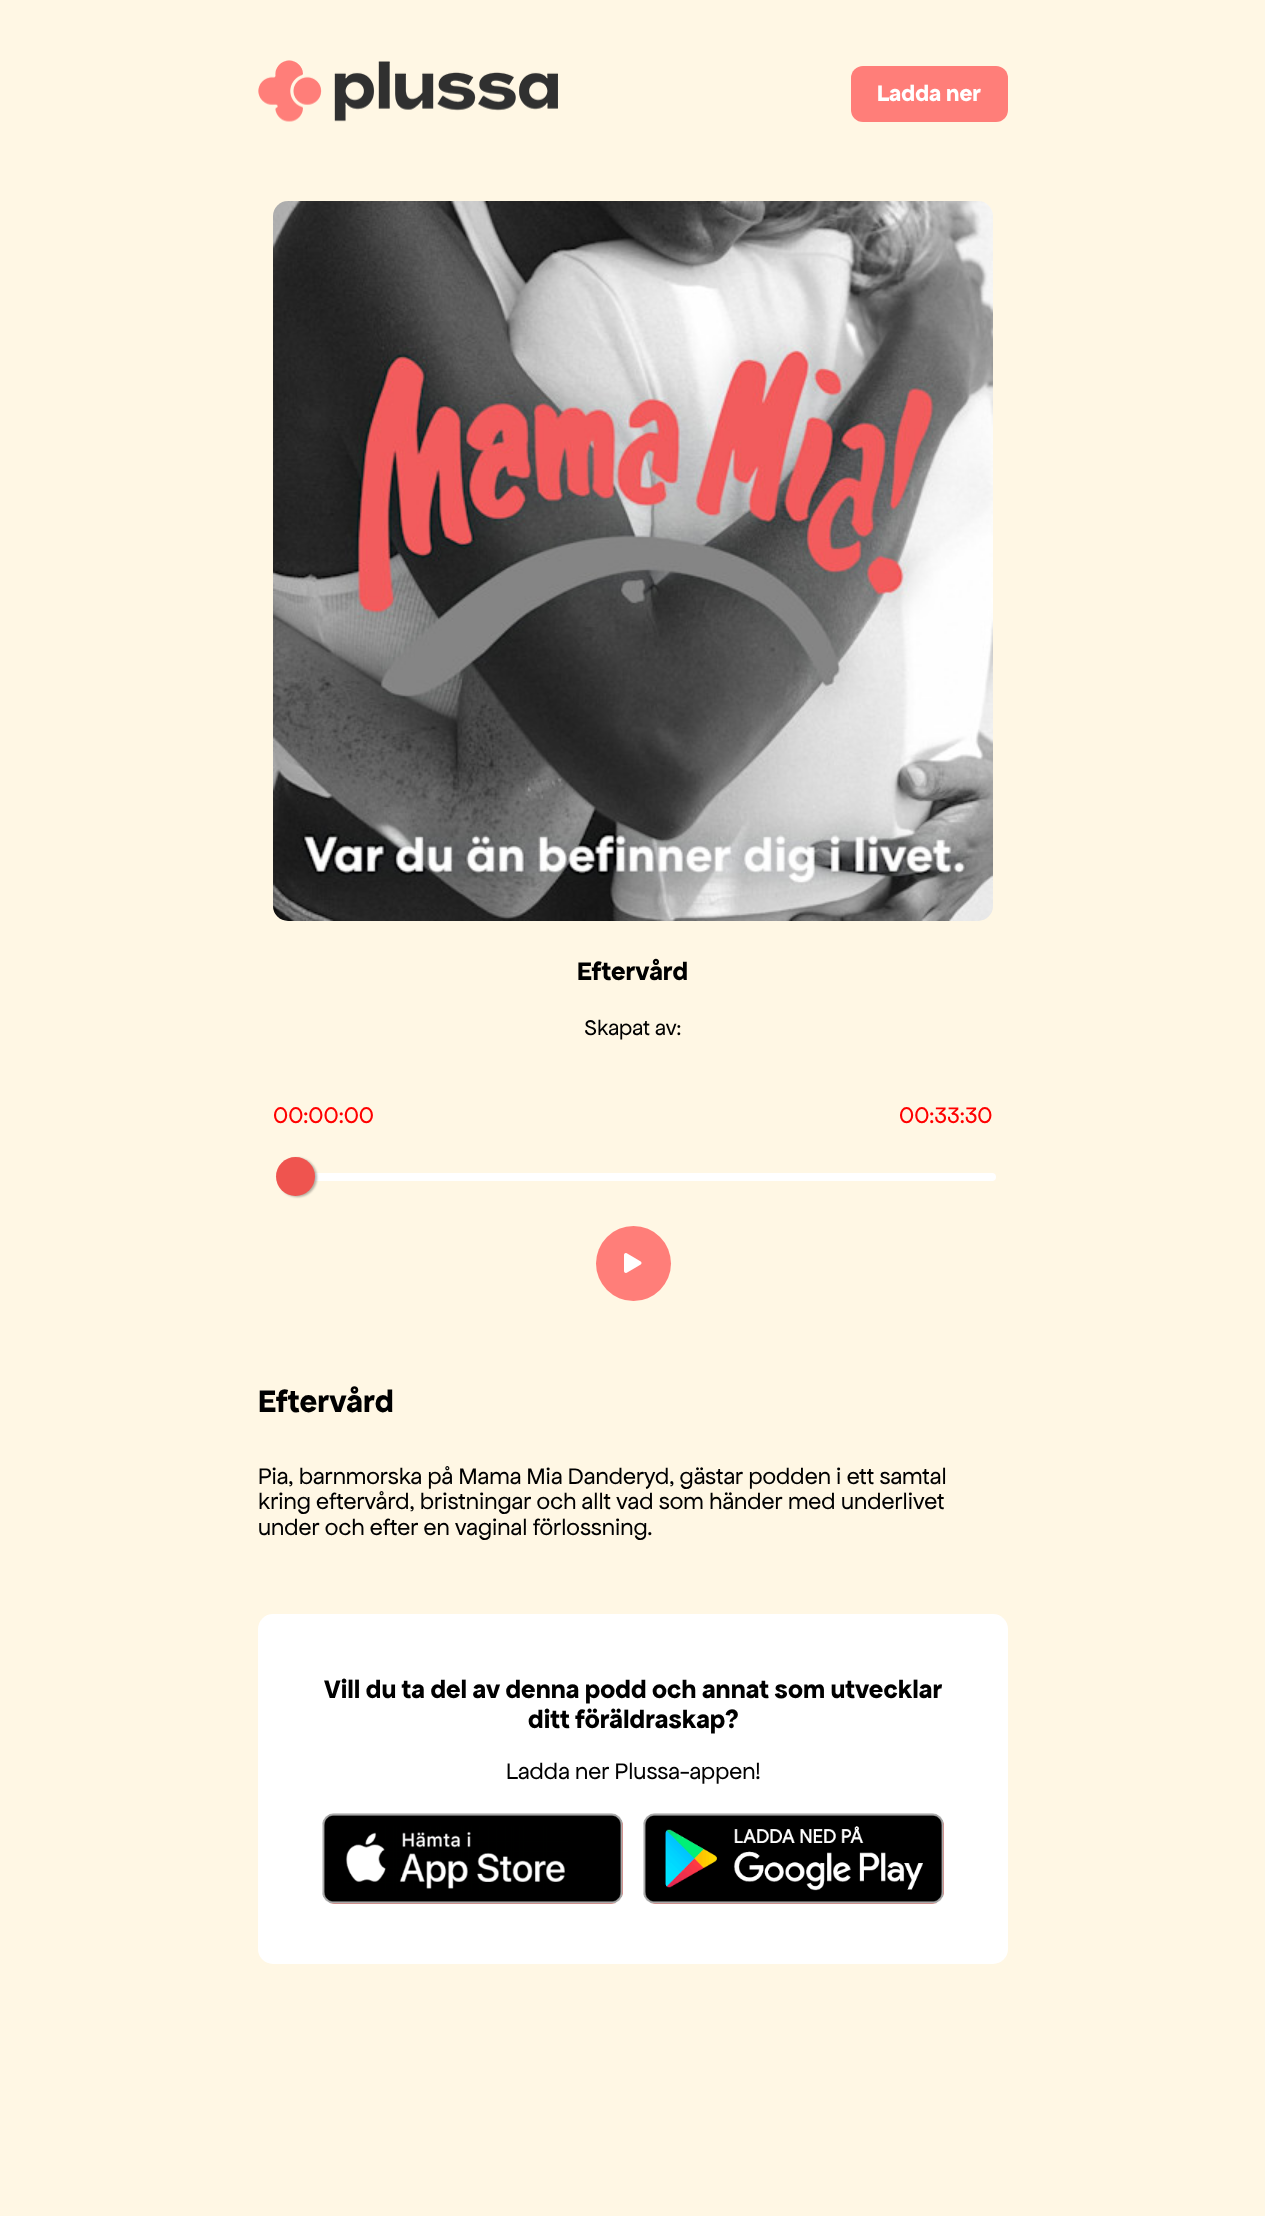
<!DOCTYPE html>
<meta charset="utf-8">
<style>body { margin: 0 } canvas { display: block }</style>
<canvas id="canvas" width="1265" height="2216"></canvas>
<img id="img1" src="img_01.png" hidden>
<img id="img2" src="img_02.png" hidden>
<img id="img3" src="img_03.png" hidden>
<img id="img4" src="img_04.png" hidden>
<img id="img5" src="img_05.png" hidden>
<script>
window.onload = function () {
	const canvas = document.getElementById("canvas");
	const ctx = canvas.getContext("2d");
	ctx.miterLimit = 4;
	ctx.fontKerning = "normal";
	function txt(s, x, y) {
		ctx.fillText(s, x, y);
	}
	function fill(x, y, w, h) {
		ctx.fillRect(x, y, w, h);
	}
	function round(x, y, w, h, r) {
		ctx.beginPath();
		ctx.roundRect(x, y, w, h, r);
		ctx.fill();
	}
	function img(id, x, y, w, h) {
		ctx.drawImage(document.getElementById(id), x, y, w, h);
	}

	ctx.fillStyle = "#FFF7E4";
	fill(0, 0, 1265, 2216);
	img("img1", 258, 60, 300, 62);
	ctx.fillStyle = "#FF7E79";
	round(851, 66, 157, 56, 12);
	img("img2", 273, 201, 720, 720);
	ctx.fillStyle = "#FFFFFF";
	round(276, 1173, 720, 8, 4);
	ctx.fillStyle = "rgba(0, 0, 0, 0.3)";
	ctx.filter = "blur(1px)";
	ctx.beginPath();
	ctx.roundRect(278, 1158, 39, 39, 19.5);
	ctx.fill();
	ctx.filter = "none";
	ctx.fillStyle = "#EF544F";
	ctx.beginPath();
	ctx.arc(295.5, 1176.5, 19.5, 0, Math.PI * 2);
	ctx.fill();
	ctx.fillStyle = "#FF7E79";
	ctx.beginPath();
	ctx.arc(633.5, 1263.5, 37.5, 0, Math.PI * 2);
	ctx.fill();
	img("img3", 624, 1253, 18, 20);
	ctx.fillStyle = "#FFFFFF";
	round(258, 1614, 750, 350, 15);
	ctx.fillStyle = "#FF7E79";
	round(323, 1814, 300, 90, 12);
	img("img4", 322, 1813, 301, 91);
	round(644, 1814, 300, 90, 12);
	img("img5", 643, 1813, 301, 91);
	ctx.font = "bold 24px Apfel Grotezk";
	ctx.fillStyle = "#FFFFFF";
	txt("Ladda ner", 877, 101);
	ctx.font = "bold 27px Apfel Grotezk";
	ctx.fillStyle = "#000000";
	txt("Eftervård", 577, 980);
	ctx.font = "22.5px Apfel Grotezk";
	txt("Skapat av:", 584, 1035);
	ctx.font = "24px Apfel Grotezk";
	ctx.fillStyle = "#FF0000";
	txt("00:00:00", 273, 1123);
	txt("00:33:30", 899, 1123);
	ctx.font = "bold 33px Apfel Grotezk";
	ctx.fillStyle = "#000000";
	txt("Eftervård", 258, 1412);
	ctx.font = "24px Apfel Grotezk";
	txt("Pia, barnmorska på Mama Mia Danderyd, gästar podden i ett samtal", 258, 1484);
	txt("kring eftervård, bristningar och allt vad som händer med underlivet", 258, 1509);
	txt("under och efter en vaginal förlossning.", 258, 1535);
	ctx.font = "bold 27px Apfel Grotezk";
	txt("Vill du ta del av denna podd och annat som utvecklar", 324, 1698);
	txt("ditt föräldraskap?", 528, 1728);
	ctx.font = "24px Apfel Grotezk";
	txt("Ladda ner Plussa-appen!", 506, 1779);
};
</script>
